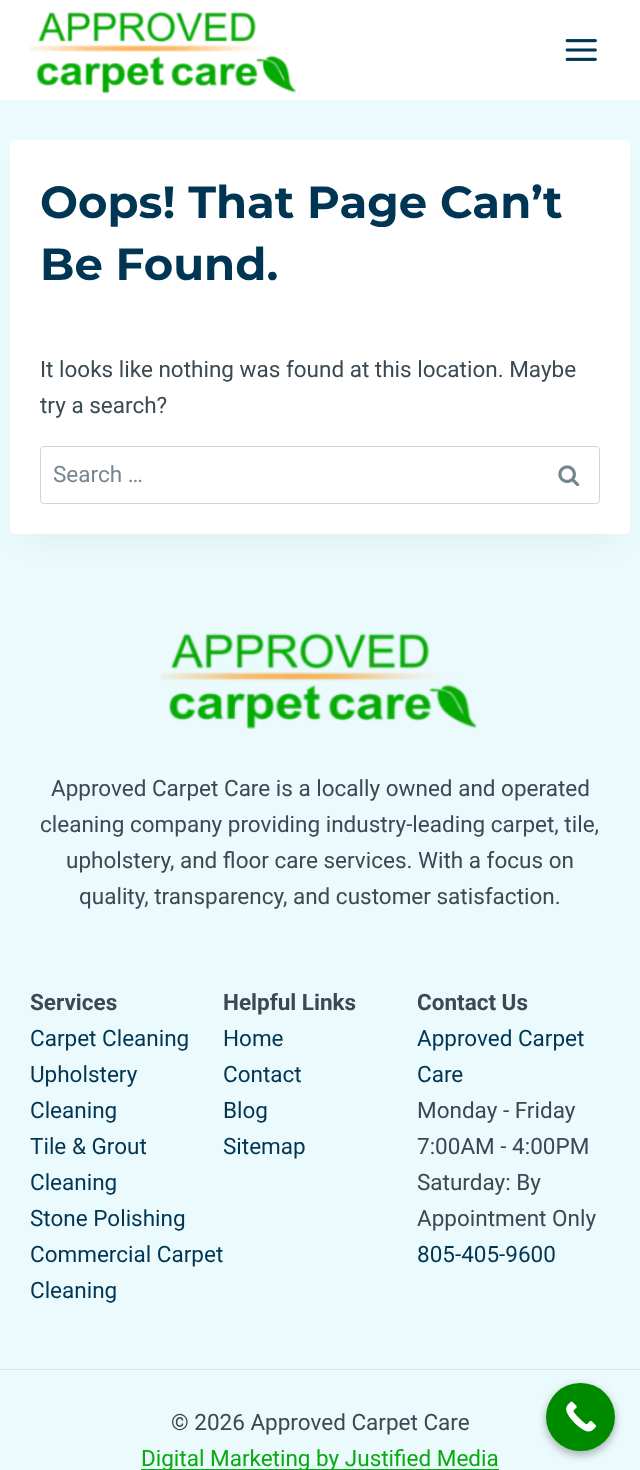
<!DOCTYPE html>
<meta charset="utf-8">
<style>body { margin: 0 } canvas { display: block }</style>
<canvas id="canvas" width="640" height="1470"></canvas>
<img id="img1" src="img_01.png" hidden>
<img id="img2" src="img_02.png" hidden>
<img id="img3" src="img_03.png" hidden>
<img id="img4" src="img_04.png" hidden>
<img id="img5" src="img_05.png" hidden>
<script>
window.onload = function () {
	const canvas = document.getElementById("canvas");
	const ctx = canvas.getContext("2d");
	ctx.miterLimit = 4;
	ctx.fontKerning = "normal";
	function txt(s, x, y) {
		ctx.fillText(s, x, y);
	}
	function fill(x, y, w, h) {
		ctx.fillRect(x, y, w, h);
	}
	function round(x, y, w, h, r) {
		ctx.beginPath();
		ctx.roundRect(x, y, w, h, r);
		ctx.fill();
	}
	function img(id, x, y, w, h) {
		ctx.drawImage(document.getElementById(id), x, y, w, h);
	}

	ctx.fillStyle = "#EBFAFC";
	fill(0, 0, 640, 1470);
	ctx.fillStyle = "#FFFFFF";
	fill(0, 0, 640, 100);
	img("img1", 30, 11, 267, 83);
	img("img2", 565, 39, 32, 22);
	ctx.fillStyle = "rgba(0, 0, 0, 0.05)";
	ctx.filter = "blur(15.5px)";
	ctx.beginPath();
	ctx.rect(23, 171, 595, 369);
	ctx.fill();
	ctx.filter = "none";
	ctx.fillStyle = "#FFFFFF";
	round(10, 140, 620, 394, 5);
	ctx.beginPath();
	ctx.roundRect(40.5, 446.5, 559, 57, 3.5);
	ctx.strokeStyle = "#CBD5E0";
	ctx.stroke();
	img("img3", 558, 465, 22, 21);
	img("img4", 161, 632, 316, 97);
	ctx.fillStyle = "#D2E8EB";
	fill(0, 1369, 640, 1);
	ctx.fillStyle = "#08AB0F";
	fill(141, 1469, 358, 1);
	ctx.fillStyle = "rgba(0, 0, 0, 0.3)";
	ctx.filter = "blur(4px)";
	ctx.beginPath();
	ctx.roundRect(546, 1386, 69, 69, 34.5);
	ctx.fill();
	ctx.filter = "none";
	ctx.fillStyle = "#008A00";
	round(546, 1383, 69, 68, 34);
	img("img5", 566, 1401, 31, 31);
	ctx.font = "bold 45px Montserrat";
	ctx.fillStyle = "#003554";
	txt("Oops! That Page Can’t", 40, 218);
	txt("Be Found.", 40, 280);
	ctx.font = "22.5px Roboto";
	ctx.fillStyle = "#3A4952";
	txt("It looks like nothing was found at this location. Maybe", 40, 377);
	txt("try a search?", 40, 413);
	ctx.fillStyle = "#75868F";
	txt("Search …", 53, 482);
	ctx.fillStyle = "#3A4952";
	txt("Approved Carpet Care is a locally owned and operated", 51, 796);
	txt("cleaning company providing industry-leading carpet, tile,", 40, 832);
	txt("upholstery, and floor care services. With a focus on", 66, 868);
	txt("quality, transparency, and customer satisfaction.", 79, 904);
	ctx.font = "bold 22.5px Roboto";
	txt("Services", 30, 1010);
	ctx.font = "22.5px Roboto";
	ctx.fillStyle = "#003554";
	txt("Carpet Cleaning", 30, 1046);
	txt("Upholstery", 30, 1082);
	txt("Cleaning", 30, 1118);
	txt("Tile & Grout", 30, 1154);
	txt("Cleaning", 30, 1190);
	txt("Stone Polishing", 30, 1226);
	txt("Commercial Carpet", 30, 1262);
	txt("Cleaning", 30, 1298);
	ctx.font = "bold 22.5px Roboto";
	ctx.fillStyle = "#3A4952";
	txt("Helpful Links", 223, 1010);
	ctx.font = "22.5px Roboto";
	ctx.fillStyle = "#003554";
	txt("Home", 223, 1046);
	txt("Contact", 223, 1082);
	txt("Blog", 223, 1118);
	txt("Sitemap", 223, 1154);
	ctx.font = "bold 22.5px Roboto";
	ctx.fillStyle = "#3A4952";
	txt("Contact Us", 417, 1010);
	ctx.font = "22.5px Roboto";
	ctx.fillStyle = "#003554";
	txt("Approved Carpet", 417, 1046);
	txt("Care", 417, 1082);
	ctx.fillStyle = "#3A4952";
	txt("Monday - Friday", 417, 1118);
	txt("7:00AM - 4:00PM", 417, 1154);
	txt("Saturday: By", 417, 1190);
	txt("Appointment Only", 417, 1226);
	ctx.fillStyle = "#003554";
	txt("805-405-9600", 417, 1262);
	ctx.fillStyle = "#3A4952";
	txt("© 2026 Approved Carpet Care", 171, 1430);
	ctx.fillStyle = "#08AB0F";
	txt("Digital Marketing by Justified Media", 141, 1466);
};
</script>
